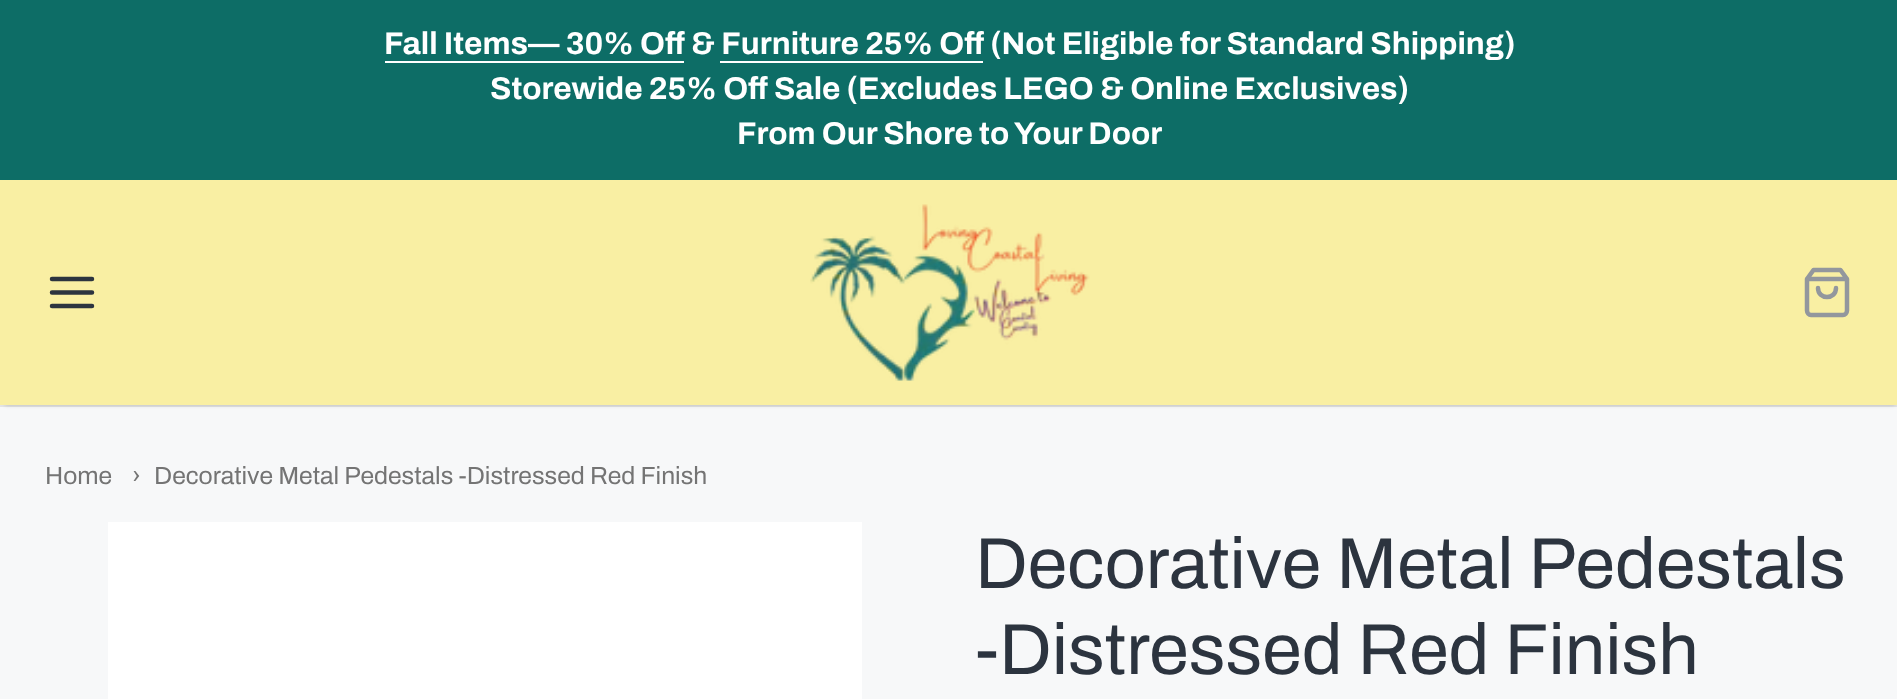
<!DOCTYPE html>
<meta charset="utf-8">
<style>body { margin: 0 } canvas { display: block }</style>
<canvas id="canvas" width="1897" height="699"></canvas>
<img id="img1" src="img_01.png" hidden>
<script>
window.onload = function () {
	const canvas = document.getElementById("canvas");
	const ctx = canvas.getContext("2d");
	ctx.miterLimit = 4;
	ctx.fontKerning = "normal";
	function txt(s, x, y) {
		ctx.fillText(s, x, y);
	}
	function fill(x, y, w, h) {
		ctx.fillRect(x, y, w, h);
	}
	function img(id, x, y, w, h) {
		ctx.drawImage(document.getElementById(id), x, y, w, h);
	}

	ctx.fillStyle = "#F7F8F9";
	fill(0, 0, 1897, 699);
	ctx.fillStyle = "#E3E4E5";
	fill(0, 405, 1897, 2);
	ctx.fillStyle = "#0D6D66";
	fill(0, 0, 1897, 180);
	ctx.fillStyle = "#FFFFFF";
	fill(385, 61, 299, 2);
	fill(720, 61, 263, 2);
	ctx.fillStyle = "rgba(0, 0, 0, 0.2)";
	ctx.filter = "blur(2px)";
	ctx.beginPath();
	ctx.rect(5, 189, 1890, 216);
	ctx.fill();
	ctx.filter = "none";
	ctx.fillStyle = "#F9EFA3";
	fill(0, 180, 1897, 225);
	ctx.beginPath();
	ctx.moveTo(52, 292.5);
	ctx.lineTo(92, 292.5);
	ctx.moveTo(52, 279);
	ctx.lineTo(92, 279);
	ctx.moveTo(52, 306);
	ctx.lineTo(92, 306);
	ctx.strokeStyle = "#2C343F";
	ctx.lineWidth = 4.5;
	ctx.lineCap = "round";
	ctx.lineJoin = "round";
	ctx.stroke();
	img("img1", 810, 204, 280, 177);
	ctx.beginPath();
	ctx.moveTo(1813.5, 270);
	ctx.lineTo(1807, 279);
	ctx.lineTo(1807, 310.5);
	ctx.bezierCurveTo(1807, 313, 1809, 315, 1811, 315);
	ctx.lineTo(1843, 315);
	ctx.bezierCurveTo(1845, 315, 1847, 313, 1847, 310.5);
	ctx.lineTo(1847, 279);
	ctx.lineTo(1840.5, 270);
	ctx.closePath();
	ctx.moveTo(1807, 279);
	ctx.lineTo(1847, 279);
	ctx.moveTo(1836, 288);
	ctx.bezierCurveTo(1836, 300, 1818, 300, 1818, 288);
	ctx.strokeStyle = "#93979D";
	ctx.stroke();
	ctx.fillStyle = "#FFFFFF";
	fill(108, 522, 754, 177);
	ctx.font = "bold 31.5px Archivo";
	txt("Fall Items— 30% Off & Furniture 25% Off (Not Eligible for Standard Shipping)", 384, 54);
	txt("Storewide 25% Off Sale (Excludes LEGO & Online Exclusives)", 490, 99);
	txt("From Our Shore to Your Door", 737, 144);
	ctx.font = "24.75px Archivo";
	ctx.fillStyle = "#747474";
	txt("Home", 45, 484);
	txt("›", 132, 484);
	txt("Decorative Metal Pedestals -Distressed Red Finish", 154, 484);
	ctx.font = "72px Archivo";
	ctx.fillStyle = "#2C343F";
	txt("Decorative Metal Pedestals", 975, 588);
	txt("-Distressed Red Finish", 975, 674);
};
</script>
